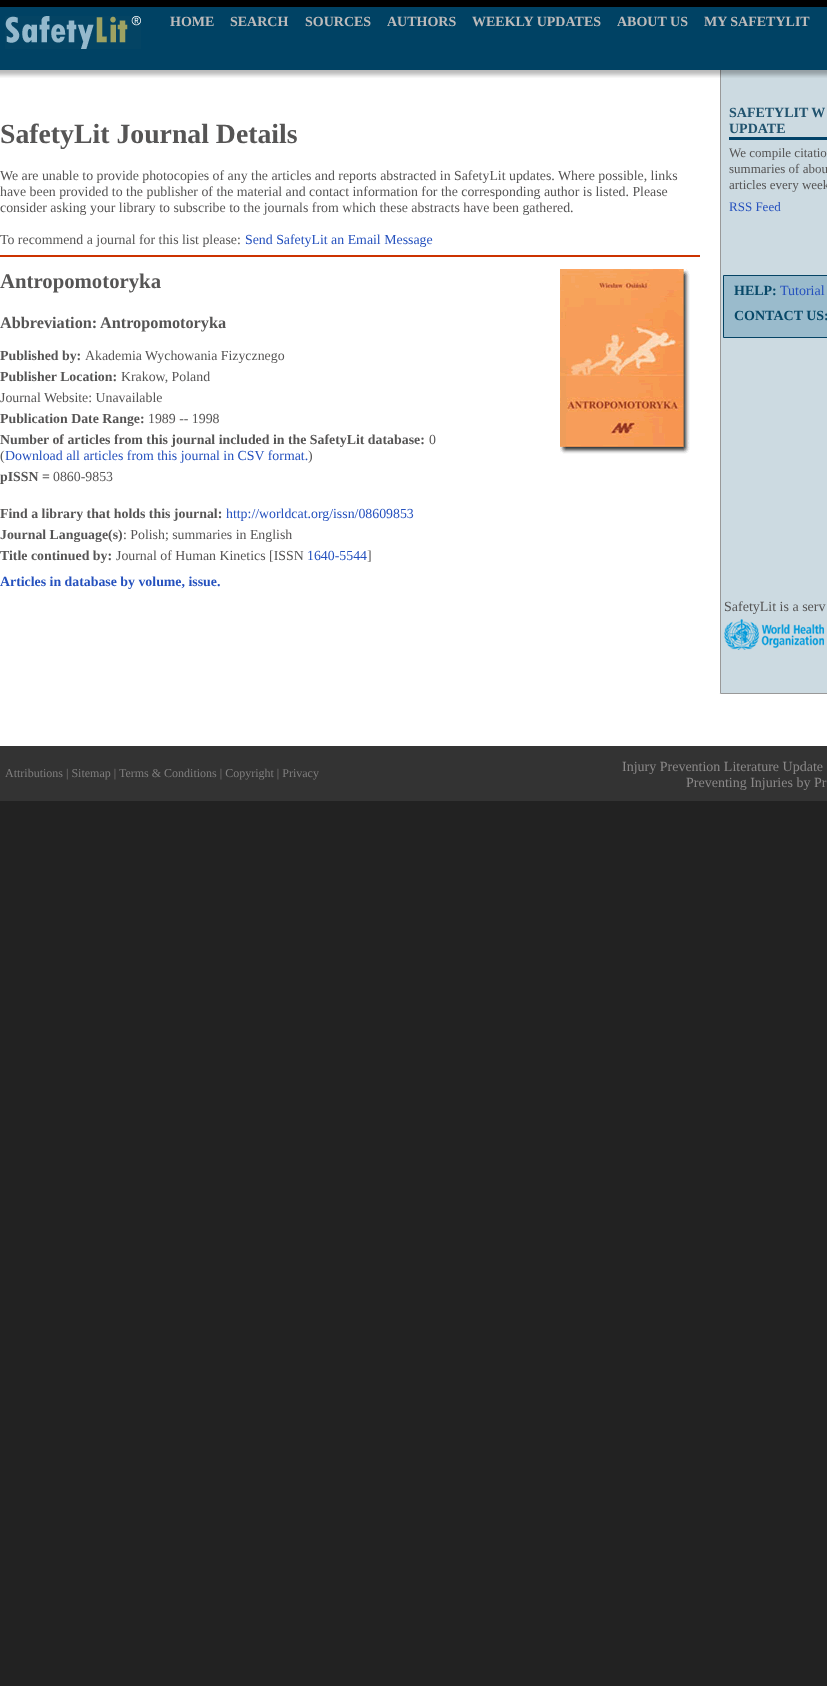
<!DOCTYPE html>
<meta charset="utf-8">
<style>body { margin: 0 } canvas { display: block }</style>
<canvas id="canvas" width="827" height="1686"></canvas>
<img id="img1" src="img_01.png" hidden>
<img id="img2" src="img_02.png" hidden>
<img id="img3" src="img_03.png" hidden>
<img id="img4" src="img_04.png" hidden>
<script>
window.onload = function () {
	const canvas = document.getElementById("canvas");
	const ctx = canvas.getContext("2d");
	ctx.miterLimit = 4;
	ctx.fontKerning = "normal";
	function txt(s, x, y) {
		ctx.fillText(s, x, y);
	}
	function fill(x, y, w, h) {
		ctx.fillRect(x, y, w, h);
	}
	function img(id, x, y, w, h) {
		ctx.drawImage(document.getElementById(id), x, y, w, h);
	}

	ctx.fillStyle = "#222222";
	fill(0, 0, 827, 1686);
	ctx.fillStyle = "#FFFFFF";
	fill(0, 70, 720, 676);
	ctx.fillStyle = "#CCDAE1";
	fill(721, 70, 106, 623);
	ctx.fillStyle = "#999999";
	fill(720, 70, 1, 624);
	img("img1", 0, 0, 827, 78);
	img("img2", 5, 16, 136, 33);
	ctx.fillStyle = "#CC3300";
	fill(0, 255, 700, 2);
	img("img3", 560, 269, 130, 185);
	ctx.fillStyle = "#024369";
	fill(729, 137, 98, 3);
	ctx.fillStyle = "#9ABBCC";
	ctx.beginPath();
	ctx.rect(723.5, 275.5, 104, 62);
	ctx.fill();
	ctx.strokeStyle = "#044364";
	ctx.stroke();
	img("img4", 724, 619, 100, 31);
	ctx.fillStyle = "#FFFFFF";
	fill(721, 694, 106, 50);
	ctx.fillStyle = "#999999";
	ctx.beginPath();
	ctx.moveTo(719, 693);
	ctx.lineTo(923, 693);
	ctx.lineTo(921, 694);
	ctx.lineTo(721, 694);
	ctx.closePath();
	ctx.fill();
	ctx.fillStyle = "#FFFFFF";
	fill(719, 744, 108, 2);
	ctx.beginPath();
	ctx.moveTo(719, 746);
	ctx.lineTo(719, 693);
	ctx.lineTo(721, 694);
	ctx.lineTo(721, 744);
	ctx.closePath();
	ctx.fill();
	ctx.fillStyle = "#333333";
	fill(0, 746, 827, 55);
	ctx.font = "bold 14px Liberation Serif";
	ctx.fillStyle = "#BDBBBB";
	txt("HOME", 170, 26);
	txt("SEARCH", 230, 26);
	txt("SOURCES", 305, 26);
	txt("AUTHORS", 387, 26);
	txt("WEEKLY UPDATES", 472, 26);
	txt("ABOUT US", 617, 26);
	txt("MY SAFETYLIT", 704, 26);
	ctx.font = "bold 27.75px Liberation Serif";
	ctx.fillStyle = "#565555";
	txt("SafetyLit Journal Details", 0, 143);
	ctx.font = "13.85px Liberation Serif";
	txt("We are unable to provide photocopies of any the articles and reports abstracted in SafetyLit updates. Where possible, links", 0, 180);
	txt("have been provided to the publisher of the material and contact information for the corresponding author is listed. Please", 0, 196);
	txt("consider asking your library to subscribe to the journals from which these abstracts have been gathered.", 0, 212);
	txt("To recommend a journal for this list please:", 0, 244);
	ctx.fillStyle = "#2551BE";
	txt("Send SafetyLit an Email Message", 245, 244);
	ctx.font = "bold 20.75px Liberation Serif";
	ctx.fillStyle = "#565555";
	txt("Antropomotoryka", 0, 288);
	ctx.font = "bold 16.25px Liberation Serif";
	txt("Abbreviation:", 0, 328);
	txt("Antropomotoryka", 100, 328);
	ctx.font = "bold 13.85px Liberation Serif";
	txt("Published by:", 0, 360);
	ctx.font = "13.85px Liberation Serif";
	txt("Akademia Wychowania Fizycznego", 85, 360);
	ctx.font = "bold 13.85px Liberation Serif";
	txt("Publisher Location:", 0, 381);
	ctx.font = "13.85px Liberation Serif";
	txt("Krakow, Poland", 121, 381);
	txt("Journal Website: Unavailable", 0, 402);
	ctx.font = "bold 13.85px Liberation Serif";
	txt("Publication Date Range:", 0, 423);
	ctx.font = "13.85px Liberation Serif";
	txt("1989 -- 1998", 148, 423);
	ctx.font = "bold 13.85px Liberation Serif";
	txt("Number of articles from this journal included in the SafetyLit database:", 0, 444);
	ctx.font = "13.85px Liberation Serif";
	txt("0", 429, 444);
	txt("(", 0, 460);
	ctx.fillStyle = "#2551BE";
	txt("Download all articles from this journal in CSV format.", 5, 460);
	ctx.fillStyle = "#565555";
	txt(")", 308, 460);
	ctx.font = "bold 13.85px Liberation Serif";
	txt("pISSN =", 0, 481);
	ctx.font = "13.85px Liberation Serif";
	txt("0860-9853", 53, 481);
	ctx.font = "bold 13.85px Liberation Serif";
	txt("Find a library that holds this journal:", 0, 518);
	ctx.font = "13.85px Liberation Serif";
	ctx.fillStyle = "#2551BE";
	txt("http://worldcat.org/issn/08609853", 226, 518);
	ctx.font = "bold 13.85px Liberation Serif";
	ctx.fillStyle = "#565555";
	txt("Journal Language(s)", 0, 539);
	ctx.font = "13.85px Liberation Serif";
	txt(": Polish; summaries in English", 123, 539);
	ctx.font = "bold 13.85px Liberation Serif";
	txt("Title continued by:", 0, 560);
	ctx.font = "13.85px Liberation Serif";
	txt("Journal of Human Kinetics [ISSN", 116, 560);
	ctx.fillStyle = "#2551BE";
	txt("1640-5544", 307, 560);
	ctx.fillStyle = "#565555";
	txt("]", 367, 560);
	ctx.font = "bold 13.85px Liberation Serif";
	ctx.fillStyle = "#2551BE";
	txt("Articles in database by volume, issue.", 0, 586);
	ctx.font = "bold 14px Liberation Serif";
	ctx.fillStyle = "#21536E";
	txt("SAFETYLIT W", 729, 117);
	txt("UPDATE", 729, 133);
	ctx.font = "13px Liberation Serif";
	ctx.fillStyle = "#565555";
	txt("We compile citatio", 729, 157);
	txt("summaries of abou", 729, 173);
	txt("articles every week", 729, 189);
	ctx.fillStyle = "#2551BE";
	txt("RSS Feed", 729, 211);
	ctx.font = "bold 14px Liberation Serif";
	ctx.fillStyle = "#074868";
	txt("HELP:", 734, 295);
	ctx.font = "14px Liberation Serif";
	ctx.fillStyle = "#2551BE";
	txt("Tutorial", 780, 295);
	ctx.font = "bold 14px Liberation Serif";
	ctx.fillStyle = "#074868";
	txt("CONTACT US:", 734, 320);
	ctx.font = "14px Liberation Serif";
	ctx.fillStyle = "#565555";
	txt("SafetyLit is a serv", 724, 611);
	ctx.font = "12px Liberation Serif";
	ctx.fillStyle = "#7F7E7E";
	txt("Attributions | Sitemap | Terms & Conditions | Copyright | Privacy", 5, 777);
	ctx.font = "14px Liberation Serif";
	ctx.fillStyle = "#8A8888";
	txt("Injury Prevention Literature Update", 622, 771);
	txt("Preventing Injuries by Pr", 686, 787);
};
</script>
